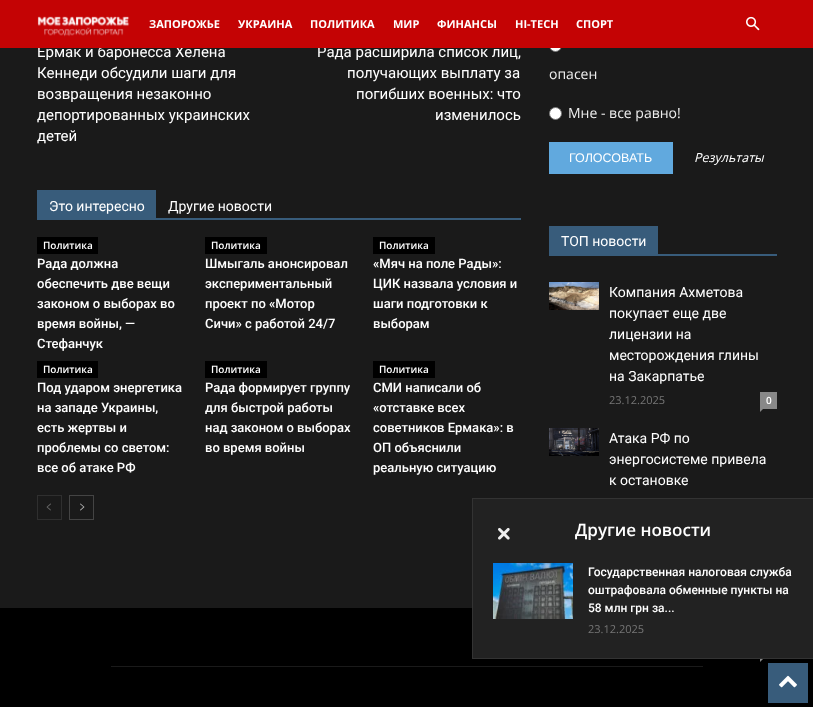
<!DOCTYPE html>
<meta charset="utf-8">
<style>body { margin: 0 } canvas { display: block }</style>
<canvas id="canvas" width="813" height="707"></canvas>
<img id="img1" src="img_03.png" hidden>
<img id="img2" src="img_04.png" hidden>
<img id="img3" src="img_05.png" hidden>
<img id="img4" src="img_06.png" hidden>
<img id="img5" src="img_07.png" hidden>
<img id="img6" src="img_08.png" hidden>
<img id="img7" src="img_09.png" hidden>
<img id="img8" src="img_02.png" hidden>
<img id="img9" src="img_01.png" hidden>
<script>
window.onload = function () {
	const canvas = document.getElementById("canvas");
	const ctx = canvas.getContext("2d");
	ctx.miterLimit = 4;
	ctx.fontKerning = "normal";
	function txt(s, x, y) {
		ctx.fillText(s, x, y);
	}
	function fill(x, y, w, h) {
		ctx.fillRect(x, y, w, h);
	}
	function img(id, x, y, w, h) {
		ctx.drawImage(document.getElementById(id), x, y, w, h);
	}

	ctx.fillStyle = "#1A1A1A";
	fill(0, 0, 813, 707);
	ctx.fillStyle = "#385C7B";
	fill(37, 218, 484, 2);
	fill(37, 190, 119, 28);
	ctx.fillStyle = "#000000";
	fill(37, 237, 61, 17);
	fill(205, 237, 62, 17);
	fill(373, 237, 62, 17);
	fill(37, 361, 61, 17);
	fill(205, 361, 62, 17);
	fill(373, 361, 62, 17);
	ctx.strokeStyle = "#2F2F2F";
	ctx.strokeRect(37.5, 495.5, 24, 24);
	img("img1", 46, 503, 5, 8);
	ctx.strokeStyle = "#444444";
	ctx.strokeRect(69.5, 495.5, 24, 24);
	img("img2", 80, 503, 5, 8);
	ctx.fillStyle = "#FFFFFF";
	ctx.beginPath();
	ctx.arc(555.5, 45.5, 6, 0, Math.PI * 2);
	ctx.fill();
	ctx.strokeStyle = "#767676";
	ctx.stroke();
	ctx.beginPath();
	ctx.arc(555.5, 113.5, 6, 0, Math.PI * 2);
	ctx.fill();
	ctx.stroke();
	ctx.fillStyle = "#61A9DE";
	fill(549, 142, 124, 32);
	ctx.fillStyle = "#385C7B";
	fill(549, 254, 228, 2);
	fill(549, 226, 109, 28);
	img("img3", 549, 282, 50, 28);
	ctx.fillStyle = "#888888";
	fill(760, 392, 17, 17);
	ctx.beginPath();
	ctx.moveTo(760, 409);
	ctx.lineTo(763, 409);
	ctx.lineTo(760, 412);
	ctx.closePath();
	ctx.fill();
	img("img4", 549, 428, 50, 28);
	ctx.fillStyle = "#000000";
	fill(0, 608, 813, 99);
	ctx.fillStyle = "#888888";
	ctx.beginPath();
	ctx.moveTo(760, 659);
	ctx.lineTo(763, 659);
	ctx.lineTo(760, 662);
	ctx.closePath();
	ctx.fill();
	ctx.fillStyle = "#1A1A1A";
	fill(111, 666, 592, 1);
	ctx.fillStyle = "#222222";
	fill(473, 499, 340, 159);
	ctx.fillStyle = "#333333";
	fill(472, 498, 341, 1);
	fill(472, 658, 341, 1);
	fill(472, 498, 1, 161);
	img("img5", 498, 527, 12, 13);
	img("img6", 493, 563, 80, 56);
	ctx.fillStyle = "#385C7B";
	fill(768, 663, 40, 40);
	img("img7", 779, 675, 18, 13);
	ctx.font = "15px Roboto";
	ctx.fillStyle = "#FFFFFF";
	txt("Ермак и баронесса Хелена", 37, 57);
	txt("Кеннеди обсудили шаги для", 37, 78);
	txt("возвращения незаконно", 37, 99);
	txt("депортированных украинских", 37, 120);
	txt("детей", 37, 141);
	txt("Рада расширила список лиц,", 317, 57);
	ctx.fillStyle = "#C40304";
	fill(0, 0, 813, 48);
	img("img8", 746, 16, 14, 15);
	ctx.font = "bold 11px Open Sans";
	ctx.fillStyle = "#FFFFFF";
	txt("СПОРТ", 576, 28);
	txt("HI-TECH", 515, 28);
	txt("ФИНАНСЫ", 437, 28);
	txt("МИР", 393, 28);
	txt("ПОЛИТИКА", 310, 28);
	txt("УКРАИНА", 238, 28);
	txt("ЗАПОРОЖЬЕ", 149, 28);
	img("img9", 37, 16, 93, 21);
	ctx.font = "15px Roboto";
	txt("получающих выплату за", 347, 78);
	txt("погибших военных: что", 356, 99);
	txt("изменилось", 435, 120);
	ctx.font = "14px Roboto";
	txt("Это интересно", 49, 211);
	txt("Другие новости", 168, 211);
	ctx.font = "600 10px Open Sans";
	txt("Политика", 43, 249);
	ctx.font = "500 13px Roboto";
	txt("Рада должна", 37, 268);
	txt("обеспечить две вещи", 37, 288);
	txt("законом о выборах во", 37, 308);
	txt("время войны, —", 37, 328);
	txt("Стефанчук", 37, 348);
	ctx.font = "600 10px Open Sans";
	txt("Политика", 211, 249);
	ctx.font = "500 13px Roboto";
	txt("Шмыгаль анонсировал", 205, 268);
	txt("экспериментальный", 205, 288);
	txt("проект по «Мотор", 205, 308);
	txt("Сичи» с работой 24/7", 205, 328);
	ctx.font = "600 10px Open Sans";
	txt("Политика", 379, 249);
	ctx.font = "500 13px Roboto";
	txt("«Мяч на поле Рады»:", 373, 268);
	txt("ЦИК назвала условия и", 373, 288);
	txt("шаги подготовки к", 373, 308);
	txt("выборам", 373, 328);
	ctx.font = "600 10px Open Sans";
	txt("Политика", 43, 373);
	ctx.font = "500 13px Roboto";
	txt("Под ударом энергетика", 37, 392);
	txt("на западе Украины,", 37, 412);
	txt("есть жертвы и", 37, 432);
	txt("проблемы со светом:", 37, 452);
	txt("все об атаке РФ", 37, 472);
	ctx.font = "600 10px Open Sans";
	txt("Политика", 211, 373);
	ctx.font = "500 13px Roboto";
	txt("Рада формирует группу", 205, 392);
	txt("для быстрой работы", 205, 412);
	txt("над законом о выборах", 205, 432);
	txt("во время войны", 205, 452);
	ctx.font = "600 10px Open Sans";
	txt("Политика", 379, 373);
	ctx.font = "500 13px Roboto";
	txt("СМИ написали об", 373, 392);
	txt("«отставке всех", 373, 412);
	txt("советников Ермака»: в", 373, 432);
	txt("ОП объяснили", 373, 452);
	txt("реальную ситуацию", 373, 472);
	ctx.font = "14px Open Sans";
	ctx.fillStyle = "#EEEEEE";
	txt("опасен", 549, 79);
	txt("Мне - все равно!", 568, 118);
	ctx.font = "12.5px Liberation Sans";
	ctx.fillStyle = "#FFFFFF";
	txt("ГОЛОСОВАТЬ", 569, 162);
	ctx.font = "italic 12.5px Open Sans";
	txt("Результаты", 694, 162);
	ctx.font = "14px Roboto";
	txt("ТОП новости", 561, 246);
	txt("Компания Ахметова", 609, 297);
	txt("покупает еще две", 609, 318);
	txt("лицензии на", 609, 339);
	txt("месторождения глины", 609, 360);
	txt("на Закарпатье", 609, 381);
	ctx.font = "11px Open Sans";
	ctx.fillStyle = "#767676";
	txt("23.12.2025", 609, 404);
	ctx.font = "600 10px Open Sans";
	ctx.fillStyle = "#FFFFFF";
	txt("0", 766, 404);
	ctx.font = "14px Roboto";
	txt("Атака РФ по", 609, 443);
	txt("энергосистеме привела", 609, 464);
	txt("к остановке", 609, 485);
	ctx.font = "600 17px Open Sans";
	txt("Другие новости", 575, 536);
	ctx.font = "500 12px Roboto";
	txt("Государственная налоговая служба", 588, 576);
	txt("оштрафовала обменные пункты на", 588, 594);
	txt("58 млн грн за...", 588, 612);
	ctx.font = "11px Open Sans";
	ctx.fillStyle = "#767676";
	txt("23.12.2025", 588, 633);
};
</script>
